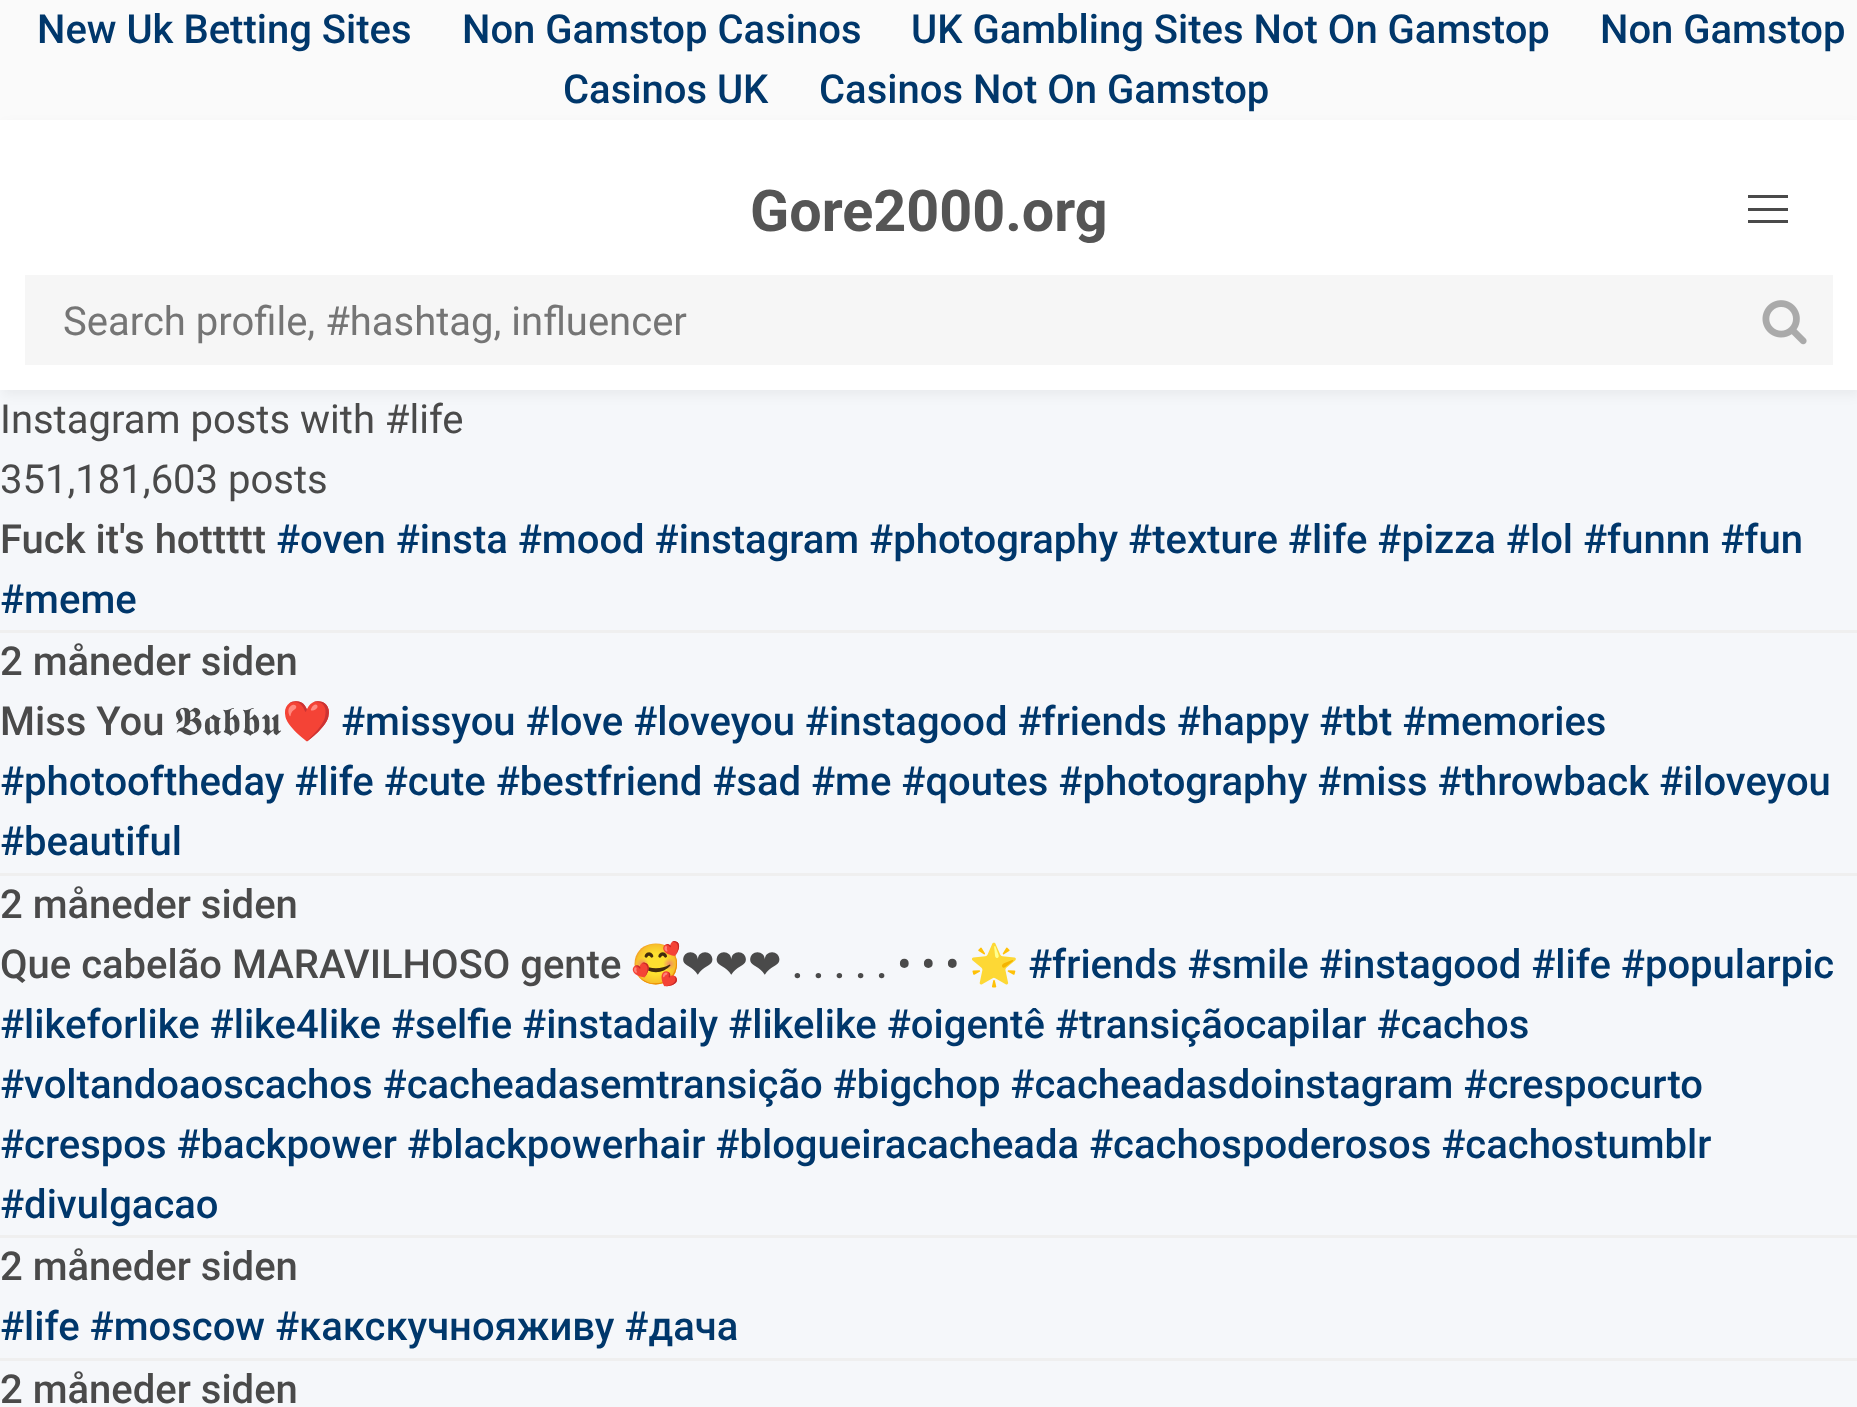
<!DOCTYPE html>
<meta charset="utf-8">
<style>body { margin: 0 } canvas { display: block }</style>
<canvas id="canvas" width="1857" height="1407"></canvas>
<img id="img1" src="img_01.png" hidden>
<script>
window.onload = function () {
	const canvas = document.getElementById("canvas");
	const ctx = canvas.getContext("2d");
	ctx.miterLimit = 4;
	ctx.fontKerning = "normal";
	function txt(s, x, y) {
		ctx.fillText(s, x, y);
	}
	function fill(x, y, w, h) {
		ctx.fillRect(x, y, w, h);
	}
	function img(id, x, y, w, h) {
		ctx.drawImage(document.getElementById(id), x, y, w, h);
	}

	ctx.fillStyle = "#FAFAFA";
	fill(0, 0, 1857, 1407);
	ctx.fillStyle = "#F5F7FA";
	fill(0, 390, 1857, 1017);
	ctx.fillStyle = "rgba(0, 0, 0, 0.05)";
	ctx.filter = "blur(6px)";
	ctx.beginPath();
	ctx.rect(3, 125, 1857, 270);
	ctx.fill();
	ctx.filter = "none";
	ctx.fillStyle = "#FFFFFF";
	fill(0, 120, 1857, 270);
	ctx.fillStyle = "#4A4A4A";
	fill(1748, 195, 40, 3);
	fill(1748, 208, 40, 3);
	fill(1748, 220, 40, 3);
	ctx.fillStyle = "#F6F6F6";
	fill(25, 275, 1808, 90);
	img("img1", 1762, 300, 45, 45);
	ctx.fillStyle = "#EFEFEF";
	fill(0, 630, 1857, 3);
	fill(0, 873, 1857, 3);
	fill(0, 1235, 1857, 3);
	fill(0, 1358, 1857, 3);
	ctx.font = "500 40px Roboto";
	ctx.fillStyle = "#00376B";
	txt("New Uk Betting Sites", 37, 43);
	txt("Non Gamstop Casinos", 462, 43);
	txt("UK Gambling Sites Not On Gamstop", 911, 43);
	txt("Non Gamstop", 1600, 43);
	txt("Casinos UK", 563, 103);
	txt("Casinos Not On Gamstop", 819, 103);
	ctx.font = "bold 57.5px Roboto";
	ctx.fillStyle = "#555555";
	txt("Gore2000.org", 750, 231);
	ctx.font = "40px Roboto";
	ctx.fillStyle = "#757575";
	txt("Search profile, #hashtag, influencer", 63, 335);
	ctx.fillStyle = "#4A4A4A";
	txt("Instagram posts with #life", 0, 433);
	txt("351,181,603 posts", 0, 493);
	ctx.font = "500 40px Roboto";
	txt("Fuck it's hottttt", 0, 553);
	ctx.fillStyle = "#00376B";
	txt("#oven #insta #mood #instagram #photography #texture #life #pizza #lol #funnn #fun", 276, 553);
	txt("#meme", 0, 613);
	ctx.fillStyle = "#4A4A4A";
	txt("2 måneder siden", 0, 675);
	txt("Miss You", 0, 735);
	ctx.font = "40px FreeSerif";
	txt("𝕭𝖆𝖇𝖇𝖚", 174, 735);
	ctx.font = "40px Noto Color Emoji";
	txt("❤️", 282, 735);
	ctx.font = "500 40px Roboto";
	ctx.fillStyle = "#00376B";
	txt("#missyou #love #loveyou #instagood #friends #happy #tbt #memories", 341, 735);
	txt("#photooftheday #life #cute #bestfriend #sad #me #qoutes #photography #miss #throwback #iloveyou", 0, 795);
	txt("#beautiful", 0, 855);
	ctx.fillStyle = "#4A4A4A";
	txt("2 måneder siden", 0, 918);
	txt("Que cabelão MARAVILHOSO gente", 0, 978);
	ctx.font = "40px Noto Color Emoji";
	txt("🥰", 631, 978);
	ctx.font = "40px DejaVu Sans";
	txt("❤❤❤", 681, 978);
	ctx.font = "500 40px Roboto";
	txt(". . . . . • • •", 792, 978);
	ctx.font = "40px Noto Color Emoji";
	txt("🌟", 969, 978);
	ctx.font = "500 40px Roboto";
	ctx.fillStyle = "#00376B";
	txt("#friends #smile #instagood #life #popularpic", 1028, 978);
	txt("#likeforlike #like4like #selfie #instadaily #likelike #oigentê #transiçãocapilar #cachos", 0, 1038);
	txt("#voltandoaoscachos #cacheadasemtransição #bigchop #cacheadasdoinstagram #crespocurto", 0, 1098);
	txt("#crespos #backpower #blackpowerhair #blogueiracacheada #cachospoderosos #cachostumblr", 0, 1158);
	txt("#divulgacao", 0, 1218);
	ctx.fillStyle = "#4A4A4A";
	txt("2 måneder siden", 0, 1280);
	ctx.fillStyle = "#00376B";
	txt("#life #moscow #какскучнояживу #дача", 0, 1340);
	ctx.fillStyle = "#4A4A4A";
	txt("2 måneder siden", 0, 1403);
};
</script>
